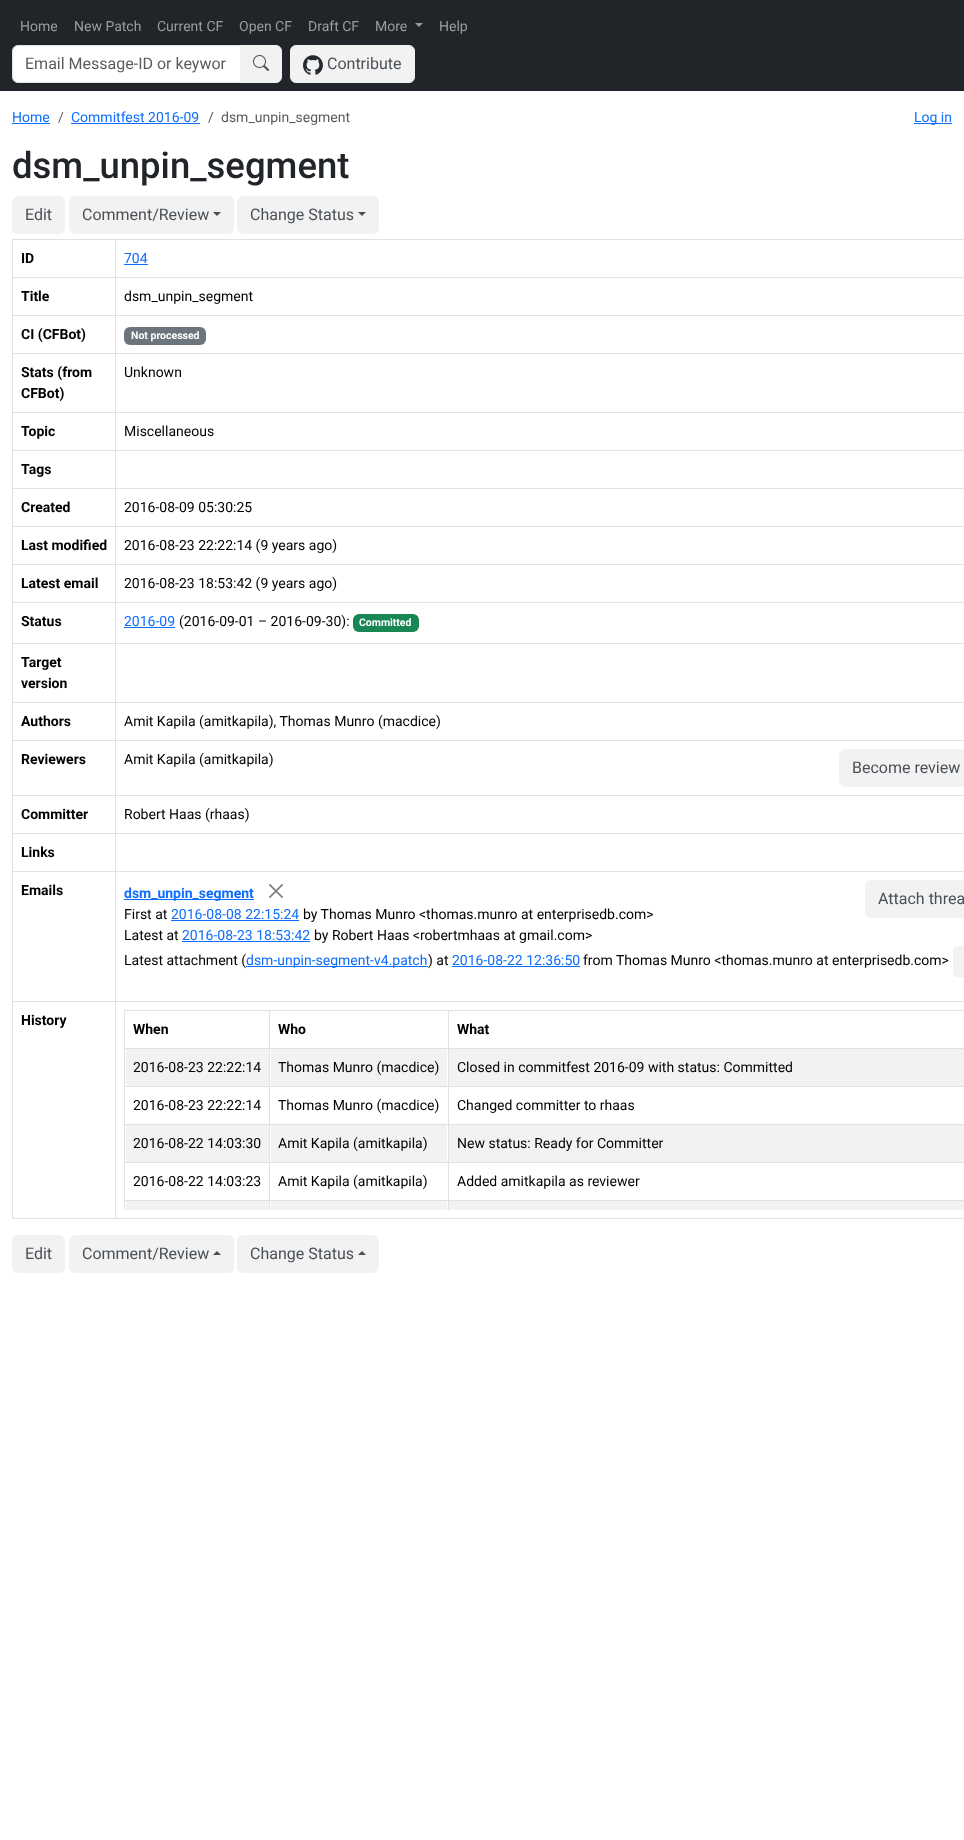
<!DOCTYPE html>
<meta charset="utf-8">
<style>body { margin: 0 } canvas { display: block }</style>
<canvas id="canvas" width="964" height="1840"></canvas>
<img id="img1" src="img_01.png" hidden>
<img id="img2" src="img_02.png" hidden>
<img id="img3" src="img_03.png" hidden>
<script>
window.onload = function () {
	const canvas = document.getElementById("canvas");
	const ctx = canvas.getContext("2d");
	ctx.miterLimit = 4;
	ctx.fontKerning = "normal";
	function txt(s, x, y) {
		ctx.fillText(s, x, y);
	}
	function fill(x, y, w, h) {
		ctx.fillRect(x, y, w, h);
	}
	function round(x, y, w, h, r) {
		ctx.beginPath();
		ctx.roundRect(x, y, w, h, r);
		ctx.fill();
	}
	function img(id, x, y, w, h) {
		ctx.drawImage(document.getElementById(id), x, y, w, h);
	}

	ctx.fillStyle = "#FFFFFF";
	fill(0, 0, 964, 1840);
	ctx.fillStyle = "#212529";
	fill(0, 0, 964, 91);
	ctx.fillStyle = "#9B9D9F";
	ctx.beginPath();
	ctx.moveTo(415, 23);
	ctx.lineTo(423, 23);
	ctx.lineTo(419, 27);
	ctx.closePath();
	ctx.fill();
	ctx.fillStyle = "#FFFFFF";
	ctx.beginPath();
	ctx.roundRect(12.5, 45.5, 228, 37, [5.5, 0, 0, 5.5]);
	ctx.fill();
	ctx.strokeStyle = "#DEE2E6";
	ctx.stroke();
	ctx.fillStyle = "#F2F2F2";
	ctx.beginPath();
	ctx.roundRect(240.5, 45.5, 41, 37, [0, 5.5, 5.5, 0]);
	ctx.fill();
	ctx.strokeStyle = "#F2F2F2";
	ctx.stroke();
	img("img1", 253, 55, 16, 16);
	ctx.beginPath();
	ctx.roundRect(290.5, 45.5, 124, 37, 5.5);
	ctx.fill();
	ctx.stroke();
	img("img2", 303, 55, 20, 20);
	ctx.fillStyle = "#0D6EFD";
	fill(12, 123, 38, 1);
	fill(71, 123, 129, 1);
	fill(914, 123, 38, 1);
	ctx.fillStyle = "#F2F2F2";
	ctx.beginPath();
	ctx.roundRect(12.5, 196.5, 52, 37, 5.5);
	ctx.fill();
	ctx.stroke();
	ctx.beginPath();
	ctx.roundRect(69.5, 196.5, 164, 37, 5.5);
	ctx.fill();
	ctx.stroke();
	ctx.fillStyle = "#495057";
	ctx.beginPath();
	ctx.moveTo(213, 212);
	ctx.lineTo(221, 212);
	ctx.lineTo(217, 216);
	ctx.closePath();
	ctx.fill();
	ctx.fillStyle = "#F2F2F2";
	ctx.beginPath();
	ctx.roundRect(237.5, 196.5, 141, 37, 5.5);
	ctx.fill();
	ctx.stroke();
	ctx.fillStyle = "#495057";
	ctx.beginPath();
	ctx.moveTo(358, 212);
	ctx.lineTo(366, 212);
	ctx.lineTo(362, 216);
	ctx.closePath();
	ctx.fill();
	ctx.fillStyle = "#DEE2E6";
	fill(12, 239, 952, 1);
	ctx.fillStyle = "#0D6EFD";
	fill(124, 264, 24, 1);
	ctx.fillStyle = "#DEE2E6";
	fill(12, 277, 952, 1);
	fill(12, 315, 952, 1);
	ctx.fillStyle = "#6C757D";
	round(124, 327, 82, 18, 6);
	ctx.fillStyle = "#DEE2E6";
	fill(12, 353, 952, 1);
	fill(12, 412, 952, 1);
	fill(12, 450, 952, 1);
	fill(12, 488, 952, 1);
	fill(12, 526, 952, 1);
	fill(12, 564, 952, 1);
	fill(12, 602, 952, 1);
	ctx.fillStyle = "#0D6EFD";
	fill(124, 627, 51, 1);
	ctx.fillStyle = "#198754";
	round(353, 614, 66, 18, 6);
	ctx.fillStyle = "#DEE2E6";
	fill(12, 643, 952, 1);
	fill(12, 702, 952, 1);
	fill(12, 740, 952, 1);
	ctx.fillStyle = "#F2F2F2";
	ctx.beginPath();
	ctx.roundRect(839.5, 749.5, 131, 37, 5.5);
	ctx.fill();
	ctx.stroke();
	ctx.fillStyle = "#DEE2E6";
	fill(12, 795, 952, 1);
	fill(12, 833, 952, 1);
	fill(12, 871, 952, 1);
	ctx.fillStyle = "#0D6EFD";
	fill(124, 899, 130, 1);
	img("img3", 269, 884, 14, 14);
	fill(171, 920, 128, 1);
	fill(182, 941, 128, 1);
	fill(246, 966, 182, 1);
	fill(452, 966, 128, 1);
	ctx.fillStyle = "#F2F2F2";
	ctx.beginPath();
	ctx.roundRect(953.5, 946.5, 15, 30, 3.5);
	ctx.fill();
	ctx.stroke();
	ctx.beginPath();
	ctx.roundRect(865.5, 880.5, 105, 37, 5.5);
	ctx.fill();
	ctx.stroke();
	ctx.fillStyle = "#DEE2E6";
	fill(12, 1001, 952, 1);
	fill(12, 1218, 952, 1);
	fill(12, 239, 1, 980);
	fill(115, 239, 1, 980);
	fill(124, 1010, 840, 1);
	fill(124, 1200, 840, 1);
	ctx.fillStyle = "#F2F2F2";
	fill(126, 1201, 143, 9);
	ctx.fillStyle = "#DEE2E6";
	fill(124, 1048, 840, 1);
	fill(124, 1086, 840, 1);
	fill(124, 1124, 840, 1);
	fill(124, 1162, 840, 1);
	fill(124, 1010, 1, 200);
	ctx.fillStyle = "#F2F2F2";
	fill(271, 1201, 176, 9);
	ctx.fillStyle = "#DEE2E6";
	fill(269, 1010, 1, 200);
	ctx.fillStyle = "#F2F2F2";
	fill(449, 1201, 515, 9);
	ctx.fillStyle = "#DEE2E6";
	fill(448, 1010, 1, 200);
	ctx.fillStyle = "#F2F2F2";
	fill(126, 1049, 143, 37);
	fill(271, 1049, 176, 37);
	fill(449, 1049, 515, 37);
	fill(126, 1125, 143, 37);
	fill(271, 1125, 176, 37);
	fill(449, 1125, 515, 37);
	ctx.beginPath();
	ctx.roundRect(12.5, 1235.5, 52, 37, 5.5);
	ctx.fill();
	ctx.stroke();
	ctx.beginPath();
	ctx.roundRect(69.5, 1235.5, 164, 37, 5.5);
	ctx.fill();
	ctx.stroke();
	ctx.fillStyle = "#495057";
	ctx.beginPath();
	ctx.moveTo(221, 1255);
	ctx.lineTo(213, 1255);
	ctx.lineTo(217, 1251);
	ctx.closePath();
	ctx.fill();
	ctx.fillStyle = "#F2F2F2";
	ctx.beginPath();
	ctx.roundRect(237.5, 1235.5, 141, 37, 5.5);
	ctx.fill();
	ctx.stroke();
	ctx.fillStyle = "#495057";
	ctx.beginPath();
	ctx.moveTo(366, 1255);
	ctx.lineTo(358, 1255);
	ctx.lineTo(362, 1251);
	ctx.closePath();
	ctx.fill();
	ctx.font = "14px Roboto";
	ctx.fillStyle = "#9B9D9F";
	txt("Home", 20, 31);
	txt("New Patch", 74, 31);
	txt("Current CF", 157, 31);
	txt("Open CF", 239, 31);
	txt("Draft CF", 308, 31);
	txt("More", 375, 31);
	txt("Help", 439, 31);
	ctx.font = "16px Roboto";
	ctx.fillStyle = "#595C5F";
	txt("Email Message-ID or keywor", 25, 69);
	ctx.fillStyle = "#495057";
	txt("Contribute", 327, 69);
	ctx.font = "14px Roboto";
	ctx.fillStyle = "#0D6EFD";
	txt("Home", 12, 122);
	ctx.fillStyle = "#595C5F";
	txt("/", 58, 122);
	ctx.fillStyle = "#0D6EFD";
	txt("Commitfest 2016-09", 71, 122);
	ctx.fillStyle = "#595C5F";
	txt("/", 208, 122);
	txt("dsm_unpin_segment", 221, 122);
	ctx.fillStyle = "#0D6EFD";
	txt("Log in", 914, 122);
	ctx.font = "500 36.5px Roboto";
	ctx.fillStyle = "#212529";
	txt("dsm_unpin_segment", 12, 178);
	ctx.font = "16px Roboto";
	ctx.fillStyle = "#495057";
	txt("Edit", 25, 220);
	txt("Comment/Review", 82, 220);
	txt("Change Status", 250, 220);
	ctx.font = "bold 14px Roboto";
	ctx.fillStyle = "#000000";
	txt("ID", 21, 263);
	ctx.font = "14px Roboto";
	ctx.fillStyle = "#0D6EFD";
	txt("704", 124, 263);
	ctx.font = "bold 14px Roboto";
	ctx.fillStyle = "#000000";
	txt("Title", 21, 301);
	ctx.font = "14px Roboto";
	txt("dsm_unpin_segment", 124, 301);
	ctx.font = "bold 14px Roboto";
	txt("CI (CFBot)", 21, 339);
	ctx.font = "bold 10.5px Roboto";
	ctx.fillStyle = "#FFFFFF";
	txt("Not processed", 131, 339);
	ctx.font = "bold 14px Roboto";
	ctx.fillStyle = "#000000";
	txt("Stats (from", 21, 377);
	txt("CFBot)", 21, 398);
	ctx.font = "14px Roboto";
	txt("Unknown", 124, 377);
	ctx.font = "bold 14px Roboto";
	txt("Topic", 21, 436);
	ctx.font = "14px Roboto";
	txt("Miscellaneous", 124, 436);
	ctx.font = "bold 14px Roboto";
	txt("Tags", 21, 474);
	txt("Created", 21, 512);
	ctx.font = "14px Roboto";
	txt("2016-08-09 05:30:25", 124, 512);
	ctx.font = "bold 14px Roboto";
	txt("Last modified", 21, 550);
	ctx.font = "14px Roboto";
	txt("2016-08-23 22:22:14 (9 years ago)", 124, 550);
	ctx.font = "bold 14px Roboto";
	txt("Latest email", 21, 588);
	ctx.font = "14px Roboto";
	txt("2016-08-23 18:53:42 (9 years ago)", 124, 588);
	ctx.font = "bold 14px Roboto";
	txt("Status", 21, 626);
	ctx.font = "14px Roboto";
	ctx.fillStyle = "#0D6EFD";
	txt("2016-09", 124, 626);
	ctx.fillStyle = "#000000";
	txt("(2016-09-01 – 2016-09-30):", 179, 626);
	ctx.font = "bold 10.5px Roboto";
	ctx.fillStyle = "#FFFFFF";
	txt("Committed", 359, 626);
	ctx.font = "bold 14px Roboto";
	ctx.fillStyle = "#000000";
	txt("Target", 21, 667);
	txt("version", 21, 688);
	txt("Authors", 21, 726);
	ctx.font = "14px Roboto";
	txt("Amit Kapila (amitkapila), Thomas Munro (macdice)", 124, 726);
	ctx.font = "bold 14px Roboto";
	txt("Reviewers", 21, 764);
	ctx.font = "14px Roboto";
	txt("Amit Kapila (amitkapila)", 124, 764);
	ctx.font = "16px Roboto";
	ctx.fillStyle = "#495057";
	txt("Become review", 852, 773);
	ctx.font = "bold 14px Roboto";
	ctx.fillStyle = "#000000";
	txt("Committer", 21, 819);
	ctx.font = "14px Roboto";
	txt("Robert Haas (rhaas)", 124, 819);
	ctx.font = "bold 14px Roboto";
	txt("Links", 21, 857);
	txt("Emails", 21, 895);
	ctx.fillStyle = "#0D6EFD";
	txt("dsm_unpin_segment", 124, 898);
	ctx.font = "14px Roboto";
	ctx.fillStyle = "#000000";
	txt("First at", 124, 919);
	ctx.fillStyle = "#0D6EFD";
	txt("2016-08-08 22:15:24", 171, 919);
	ctx.fillStyle = "#000000";
	txt("by Thomas Munro <thomas.munro at enterprisedb.com>", 303, 919);
	txt("Latest at", 124, 940);
	ctx.fillStyle = "#0D6EFD";
	txt("2016-08-23 18:53:42", 182, 940);
	ctx.fillStyle = "#000000";
	txt("by Robert Haas <robertmhaas at gmail.com>", 314, 940);
	txt("Latest attachment (", 124, 965);
	ctx.fillStyle = "#0D6EFD";
	txt("dsm-unpin-segment-v4.patch", 246, 965);
	ctx.fillStyle = "#000000";
	txt(") at", 428, 965);
	ctx.fillStyle = "#0D6EFD";
	txt("2016-08-22 12:36:50", 452, 965);
	ctx.fillStyle = "#000000";
	txt("from Thomas Munro <thomas.munro at enterprisedb.com>", 583, 965);
	ctx.font = "16px Roboto";
	ctx.fillStyle = "#495057";
	txt("Attach threa", 878, 904);
	ctx.font = "bold 14px Roboto";
	ctx.fillStyle = "#000000";
	txt("History", 21, 1025);
	txt("When", 133, 1034);
	txt("Who", 278, 1034);
	txt("What", 457, 1034);
	ctx.font = "14px Roboto";
	txt("2016-08-23 22:22:14", 133, 1072);
	txt("Thomas Munro (macdice)", 278, 1072);
	txt("Closed in commitfest 2016-09 with status: Committed", 457, 1072);
	txt("2016-08-23 22:22:14", 133, 1110);
	txt("Thomas Munro (macdice)", 278, 1110);
	txt("Changed committer to rhaas", 457, 1110);
	txt("2016-08-22 14:03:30", 133, 1148);
	txt("Amit Kapila (amitkapila)", 278, 1148);
	txt("New status: Ready for Committer", 457, 1148);
	txt("2016-08-22 14:03:23", 133, 1186);
	txt("Amit Kapila (amitkapila)", 278, 1186);
	txt("Added amitkapila as reviewer", 457, 1186);
	ctx.font = "16px Roboto";
	ctx.fillStyle = "#495057";
	txt("Edit", 25, 1259);
	txt("Comment/Review", 82, 1259);
	txt("Change Status", 250, 1259);
};
</script>
